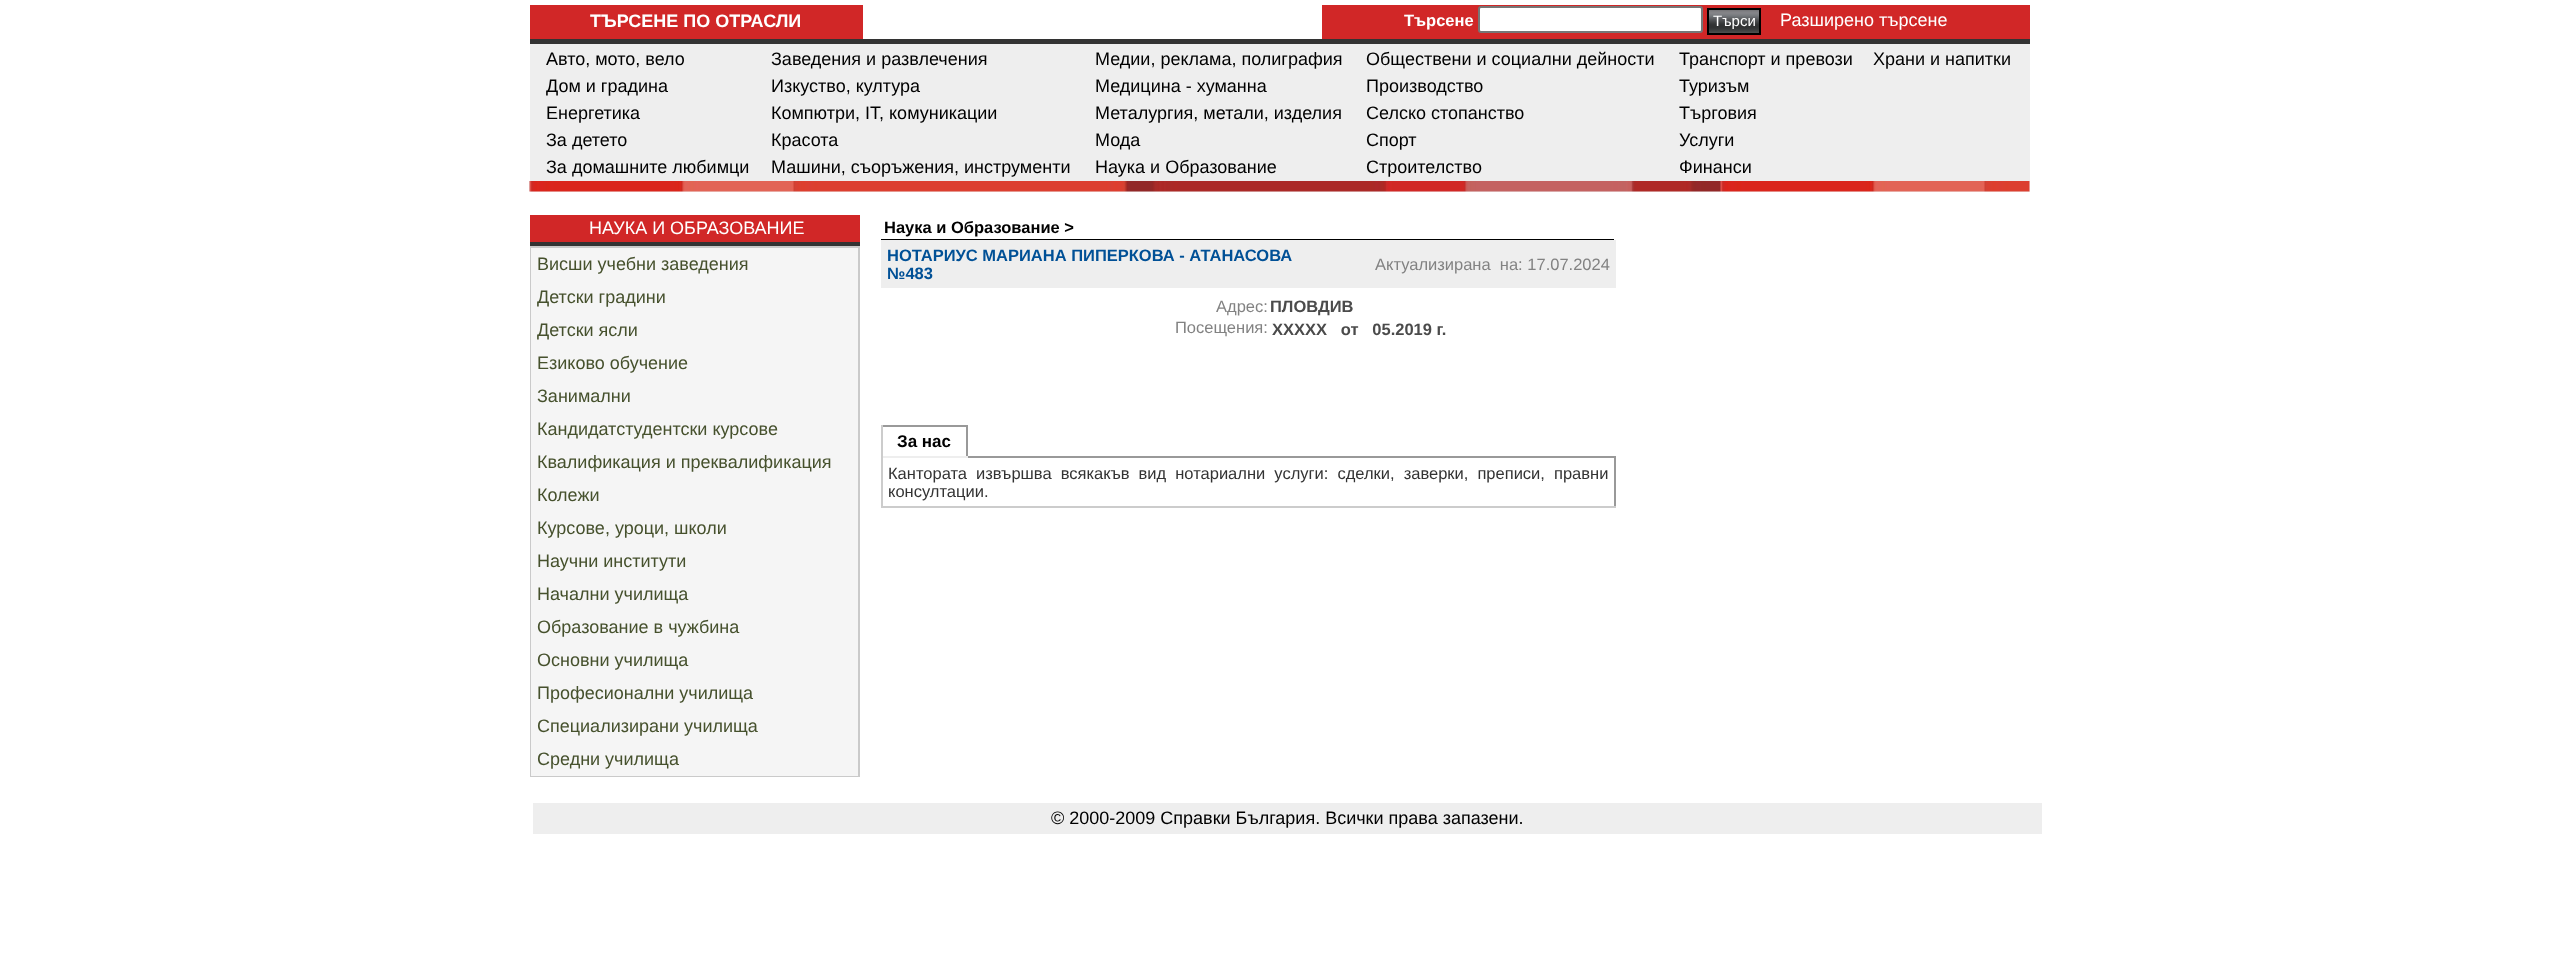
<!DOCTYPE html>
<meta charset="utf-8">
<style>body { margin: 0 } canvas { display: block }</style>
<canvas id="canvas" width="2558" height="974"></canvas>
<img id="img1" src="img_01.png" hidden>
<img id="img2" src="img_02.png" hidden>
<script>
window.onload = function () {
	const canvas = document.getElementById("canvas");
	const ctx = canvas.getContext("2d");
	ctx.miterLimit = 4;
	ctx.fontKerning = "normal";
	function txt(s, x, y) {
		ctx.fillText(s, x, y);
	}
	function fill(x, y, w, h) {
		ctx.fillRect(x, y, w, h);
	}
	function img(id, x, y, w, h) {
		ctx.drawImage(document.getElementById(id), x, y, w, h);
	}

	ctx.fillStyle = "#FFFFFF";
	fill(0, 0, 2558, 974);
	ctx.fillStyle = "#D12727";
	fill(530, 5, 333, 34);
	fill(1322, 5, 708, 34);
	ctx.fillStyle = "#FFFFFF";
	ctx.beginPath();
	ctx.roundRect(1479, 7, 223, 25, 2);
	ctx.fill();
	ctx.strokeStyle = "#767676";
	ctx.lineWidth = 2;
	ctx.stroke();
	img("img1", 1709, 10, 50, 23);
	ctx.strokeStyle = "#000000";
	ctx.strokeRect(1708, 9, 52, 25);
	ctx.fillStyle = "#EEEEEE";
	fill(530, 44, 1500, 148);
	ctx.fillStyle = "#333333";
	fill(530, 39, 1500, 5);
	img("img2", 529, 181, 1501, 11);
	ctx.fillStyle = "#D12727";
	fill(530, 215, 330, 27);
	ctx.fillStyle = "#333333";
	fill(530, 242, 330, 4);
	ctx.fillStyle = "#F5F5F5";
	fill(533, 250, 323, 524);
	ctx.strokeStyle = "#CACACA";
	ctx.strokeRect(531, 247, 328, 529);
	ctx.strokeStyle = "#F5F5F5";
	ctx.strokeRect(532, 249, 325, 31);
	ctx.strokeRect(532, 282, 325, 31);
	ctx.strokeRect(532, 315, 325, 31);
	ctx.strokeRect(532, 348, 325, 31);
	ctx.strokeRect(532, 381, 325, 31);
	ctx.strokeRect(532, 414, 325, 31);
	ctx.strokeRect(532, 447, 325, 31);
	ctx.strokeRect(532, 480, 325, 31);
	ctx.strokeRect(532, 513, 325, 31);
	ctx.strokeRect(532, 546, 325, 31);
	ctx.strokeRect(532, 579, 325, 31);
	ctx.strokeRect(532, 612, 325, 31);
	ctx.strokeRect(532, 645, 325, 31);
	ctx.strokeRect(532, 678, 325, 31);
	ctx.strokeRect(532, 711, 325, 31);
	ctx.strokeRect(532, 744, 325, 31);
	ctx.fillStyle = "#000000";
	fill(881, 239, 733, 1);
	ctx.fillStyle = "#EEEEEE";
	fill(881, 240, 735, 48);
	ctx.fillStyle = "#999999";
	fill(881, 425, 87, 2);
	fill(966, 425, 2, 33);
	fill(968, 456, 648, 2);
	fill(1614, 456, 2, 51);
	ctx.fillStyle = "#CCCCCC";
	fill(881, 506, 735, 2);
	fill(881, 456, 2, 51);
	ctx.fillStyle = "#EEEEEE";
	fill(881, 456, 87, 2);
	ctx.fillStyle = "#CCCCCC";
	fill(881, 425, 2, 33);
	ctx.fillStyle = "#EEEEEE";
	fill(533, 803, 1509, 31);
	ctx.font = "bold 18px Liberation Sans";
	ctx.fillStyle = "#FFFFFF";
	txt("ТЪРСЕНЕ ПО ОТРАСЛИ", 590, 27);
	ctx.font = "bold 16.5px Liberation Sans";
	txt("Tърсене", 1404, 26);
	ctx.font = "15px Liberation Sans";
	txt("Tърси", 1713, 26);
	ctx.font = "18px Liberation Sans";
	txt("Разширено търсене", 1780, 26);
	ctx.fillStyle = "#000000";
	txt("Авто, мото, вело", 546, 65);
	txt("Дом и градина", 546, 92);
	txt("Енергетика", 546, 119);
	txt("За детето", 546, 146);
	txt("За домашните любимци", 546, 173);
	txt("Заведения и развлечения", 771, 65);
	txt("Изкуство, култура", 771, 92);
	txt("Компютри, IT, комуникации", 771, 119);
	txt("Красота", 771, 146);
	txt("Машини, съоръжения, инструменти", 771, 173);
	txt("Медии, реклама, полиграфия", 1095, 65);
	txt("Медицина - хуманна", 1095, 92);
	txt("Металургия, метали, изделия", 1095, 119);
	txt("Мода", 1095, 146);
	txt("Наука и Образование", 1095, 173);
	txt("Обществени и социални дейности", 1366, 65);
	txt("Производство", 1366, 92);
	txt("Селско стопанство", 1366, 119);
	txt("Спорт", 1366, 146);
	txt("Строителство", 1366, 173);
	txt("Транспорт и превози", 1679, 65);
	txt("Туризъм", 1679, 92);
	txt("Търговия", 1679, 119);
	txt("Услуги", 1679, 146);
	txt("Финанси", 1679, 173);
	txt("Храни и напитки", 1873, 65);
	ctx.fillStyle = "#FFFFFF";
	txt("НАУКА И ОБРАЗОВАНИЕ", 589, 234);
	ctx.fillStyle = "#46512D";
	txt("Висши учебни заведения", 537, 270);
	txt("Детски градини", 537, 303);
	txt("Детски ясли", 537, 336);
	txt("Езиково обучение", 537, 369);
	txt("Занимални", 537, 402);
	txt("Кандидатстудентски курсове", 537, 435);
	txt("Квалификация и преквалификация", 537, 468);
	txt("Колежи", 537, 501);
	txt("Курсове, уроци, школи", 537, 534);
	txt("Научни институти", 537, 567);
	txt("Начални училища", 537, 600);
	txt("Образование в чужбина", 537, 633);
	txt("Основни училища", 537, 666);
	txt("Професионални училища", 537, 699);
	txt("Специализирани училища", 537, 732);
	txt("Средни училища", 537, 765);
	ctx.font = "bold 16.5px Liberation Sans";
	ctx.fillStyle = "#000000";
	txt("Наука и Образование >", 884, 233);
	ctx.fillStyle = "#005096";
	txt("НОТАРИУС МАРИАНА ПИПЕРКОВА - АТАНАСОВА", 887, 261);
	txt("№483", 887, 279);
	ctx.font = "16.5px Liberation Sans";
	ctx.fillStyle = "#828282";
	txt("Актуализирана  на: 17.07.2024", 1375, 270);
	txt("Адрес:", 1216, 312);
	ctx.font = "bold 16.5px Liberation Sans";
	ctx.fillStyle = "#4B4B4B";
	txt("ПЛОВДИВ", 1270, 312);
	ctx.font = "16.5px Liberation Sans";
	ctx.fillStyle = "#828282";
	txt("Посещения:", 1175, 333);
	ctx.font = "bold 16.5px Liberation Sans";
	ctx.fillStyle = "#4B4B4B";
	txt("XXXXX   от   05.2019 г.", 1272, 335);
	ctx.font = "bold 17px Liberation Sans";
	ctx.fillStyle = "#000000";
	txt("За нас", 897, 447);
	ctx.wordSpacing = "4.5px";
	ctx.font = "16.5px Liberation Sans";
	ctx.fillStyle = "#333333";
	txt("Кантората извършва всякакъв вид нотариални услуги: сделки, заверки, преписи, правни", 888, 479);
	ctx.wordSpacing = "0px";
	txt("консултации.", 888, 497);
	ctx.font = "18px Liberation Sans";
	ctx.fillStyle = "#000000";
	txt("© 2000-2009 Справки България. Всички права запазени.", 1051, 824);
};
</script>
